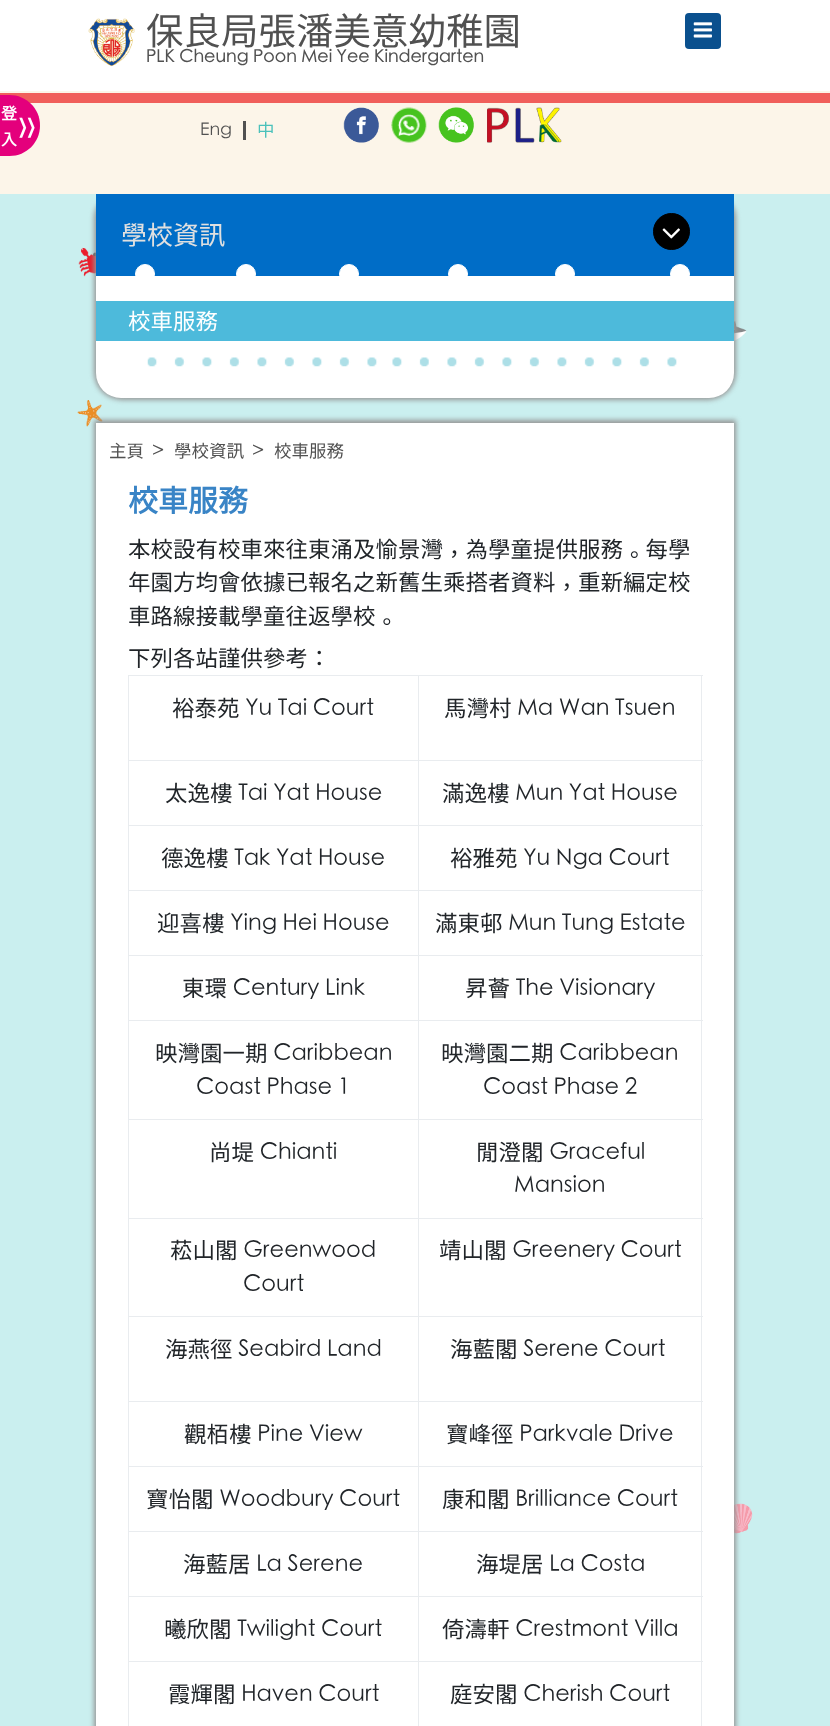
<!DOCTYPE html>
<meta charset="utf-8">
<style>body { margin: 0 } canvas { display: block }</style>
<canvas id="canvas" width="830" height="1726"></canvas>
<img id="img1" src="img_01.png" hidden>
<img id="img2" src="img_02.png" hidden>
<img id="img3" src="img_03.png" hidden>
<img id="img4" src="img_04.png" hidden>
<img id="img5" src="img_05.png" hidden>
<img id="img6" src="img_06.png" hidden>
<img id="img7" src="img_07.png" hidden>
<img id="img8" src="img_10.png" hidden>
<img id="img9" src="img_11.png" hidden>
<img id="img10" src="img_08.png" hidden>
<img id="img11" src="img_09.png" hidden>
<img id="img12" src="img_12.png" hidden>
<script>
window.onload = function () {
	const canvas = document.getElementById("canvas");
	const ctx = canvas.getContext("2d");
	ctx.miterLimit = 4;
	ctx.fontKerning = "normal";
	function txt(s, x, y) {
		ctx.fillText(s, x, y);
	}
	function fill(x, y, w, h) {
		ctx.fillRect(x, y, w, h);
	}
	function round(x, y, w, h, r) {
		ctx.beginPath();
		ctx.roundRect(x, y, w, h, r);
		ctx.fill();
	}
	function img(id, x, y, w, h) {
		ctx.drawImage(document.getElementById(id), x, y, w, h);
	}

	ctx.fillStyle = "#FFFFFF";
	fill(0, 0, 830, 1726);
	img("img1", 88, 18, 47, 49);
	ctx.fillStyle = "#0A508E";
	round(685, 13, 36, 36, 4);
	img("img2", 693, 22, 19, 16);
	ctx.fillStyle = "#FCF5E9";
	fill(0, 91, 830, 103);
	ctx.fillStyle = "#F05F5B";
	fill(0, 93, 830, 10);
	ctx.fillStyle = "#E4007C";
	ctx.beginPath();
	ctx.moveTo(-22, 95);
	ctx.lineTo(9.5, 95);
	ctx.bezierCurveTo(26.5, 95, 40, 108.5, 40, 125.5);
	ctx.bezierCurveTo(40, 142.5, 26.5, 156, 9.5, 156);
	ctx.lineTo(-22, 156);
	ctx.closePath();
	ctx.fill();
	ctx.fillStyle = "#515151";
	fill(243, 121, 3, 19);
	img("img3", 343, 107, 36, 36);
	img("img4", 391, 107, 36, 36);
	img("img5", 438, 107, 36, 36);
	img("img6", 487, 107, 75, 36);
	ctx.fillStyle = "#CAEFEF";
	fill(0, 194, 830, 1532);
	img("img7", 78, 247, 18, 30);
	img("img8", 734, 321, 13, 20);
	img("img9", 77, 400, 26, 27);
	ctx.save();
	ctx.beginPath();
	ctx.rect(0, 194, 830, 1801);
	ctx.clip();
	ctx.fillStyle = "#969696";
	ctx.filter = "blur(2.5px)";
	ctx.beginPath();
	ctx.roundRect(94, 191, 642, 209, 28);
	ctx.fill();
	ctx.filter = "none";
	ctx.restore();
	ctx.fillStyle = "#FFFFFF";
	ctx.beginPath();
	ctx.roundRect(96, 194, 638, 204, [0, 0, 25, 25]);
	ctx.fill();
	ctx.fillStyle = "#006DC7";
	fill(96, 194, 638, 82);
	ctx.fillStyle = "#000000";
	ctx.beginPath();
	ctx.arc(671.5, 231.5, 18, 0, Math.PI * 2);
	ctx.fill();
	ctx.strokeStyle = "#000000";
	ctx.stroke();
	img("img10", 662, 228, 18, 11);
	ctx.fillStyle = "#FFFFFF";
	ctx.beginPath();
	ctx.arc(145, 274, 9.5, 0, Math.PI * 2);
	ctx.fill();
	ctx.strokeStyle = "#FFFFFF";
	ctx.stroke();
	ctx.beginPath();
	ctx.arc(246, 274, 9.5, 0, Math.PI * 2);
	ctx.fill();
	ctx.stroke();
	ctx.beginPath();
	ctx.arc(349, 274, 9.5, 0, Math.PI * 2);
	ctx.fill();
	ctx.stroke();
	ctx.beginPath();
	ctx.arc(458, 274, 9.5, 0, Math.PI * 2);
	ctx.fill();
	ctx.stroke();
	ctx.beginPath();
	ctx.arc(565, 274, 9.5, 0, Math.PI * 2);
	ctx.fill();
	ctx.stroke();
	ctx.beginPath();
	ctx.arc(680, 274, 9.5, 0, Math.PI * 2);
	ctx.fill();
	ctx.stroke();
	ctx.fillStyle = "#4DBADB";
	fill(96, 301, 638, 40);
	img("img11", 147, 357, 530, 10);
	img("img12", 734, 1503, 19, 31);
	ctx.fillStyle = "#969696";
	ctx.filter = "blur(2.5px)";
	ctx.beginPath();
	ctx.rect(94, 420, 642, 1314);
	ctx.fill();
	ctx.filter = "none";
	ctx.fillStyle = "#FFFFFF";
	fill(96, 423, 638, 1303);
	ctx.fillStyle = "#E9ECEF";
	fill(128, 675, 575, 1);
	fill(701, 675, 1, 1051);
	fill(128, 675, 1, 1051);
	fill(418, 760, 285, 1);
	fill(418, 825, 285, 1);
	fill(418, 890, 285, 1);
	fill(418, 955, 285, 1);
	fill(418, 1020, 285, 1);
	fill(418, 1119, 285, 1);
	fill(418, 1218, 285, 1);
	fill(418, 1316, 285, 1);
	fill(418, 1401, 285, 1);
	fill(418, 1466, 285, 1);
	fill(418, 1531, 285, 1);
	fill(418, 1596, 285, 1);
	fill(418, 1661, 285, 1);
	fill(418, 1661, 1, 65);
	fill(128, 1661, 291, 1);
	fill(418, 1596, 1, 67);
	fill(128, 1596, 291, 1);
	fill(418, 1531, 1, 67);
	fill(128, 1531, 291, 1);
	fill(418, 1466, 1, 67);
	fill(128, 1466, 291, 1);
	fill(418, 1401, 1, 67);
	fill(128, 1401, 291, 1);
	fill(418, 1316, 1, 87);
	fill(128, 1316, 291, 1);
	fill(418, 1218, 1, 100);
	fill(128, 1218, 291, 1);
	fill(418, 1119, 1, 100);
	fill(128, 1119, 291, 1);
	fill(418, 1020, 1, 100);
	fill(128, 1020, 291, 1);
	fill(418, 955, 1, 66);
	fill(128, 955, 291, 1);
	fill(418, 890, 1, 66);
	fill(128, 890, 291, 1);
	fill(418, 825, 1, 66);
	fill(128, 825, 291, 1);
	fill(418, 760, 1, 66);
	fill(128, 760, 291, 1);
	fill(418, 675, 1, 86);
	ctx.font = "37.5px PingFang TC";
	ctx.fillStyle = "#515151";
	txt("保良局張潘美意幼稚園", 146, 44);
	ctx.font = "600 17.5px PingFang TC";
	txt("PLK Cheung Poon Mei Yee Kindergarten", 146, 63);
	ctx.font = "bold 16px PingFang TC";
	ctx.fillStyle = "#FFFFFF";
	txt("登", 1, 119);
	ctx.font = "37.5px PingFang TC";
	txt("»", 19, 140);
	ctx.font = "bold 16px PingFang TC";
	txt("入", 1, 145);
	ctx.font = "17.5px PingFang TC";
	ctx.fillStyle = "#515151";
	txt("Eng", 200, 136);
	ctx.fillStyle = "#4BC1BB";
	txt("中", 257, 136);
	ctx.font = "26px PingFang TC";
	ctx.fillStyle = "#E0E0E0";
	txt("學校資訊", 121, 244);
	ctx.font = "22.5px PingFang TC";
	ctx.fillStyle = "#FFFFFF";
	txt("校車服務", 128, 329);
	ctx.font = "17.5px PingFang TC";
	ctx.fillStyle = "#515151";
	txt("主頁", 109, 457);
	ctx.font = "20px PingFang TC";
	txt(">", 152, 458);
	ctx.font = "17.5px PingFang TC";
	txt("學校資訊", 174, 457);
	ctx.font = "20px PingFang TC";
	txt(">", 252, 458);
	ctx.font = "17.5px PingFang TC";
	txt("校車服務", 274, 457);
	ctx.font = "bold 30px PingFang TC";
	ctx.fillStyle = "#3984C6";
	txt("校車服務", 128, 511);
	ctx.font = "22.5px PingFang TC";
	ctx.fillStyle = "#212529";
	txt("本校設有校車來往東涌及愉景灣，為學童提供服務。每學", 128, 557);
	txt("年園方均會依據已報名之新舊生乘搭者資料，重新編定校", 128, 590);
	txt("車路線接載學童往返學校。", 128, 624);
	txt("下列各站謹供參考：", 128, 666);
	txt("裕泰苑 Yu Tai Court", 172, 716);
	txt("馬灣村 Ma Wan Tsuen", 444, 716);
	txt("太逸樓 Tai Yat House", 165, 801);
	txt("滿逸樓 Mun Yat House", 442, 801);
	txt("德逸樓 Tak Yat House", 161, 866);
	txt("裕雅苑 Yu Nga Court", 450, 866);
	txt("迎喜樓 Ying Hei House", 157, 931);
	txt("滿東邨 Mun Tung Estate", 435, 931);
	txt("東環 Century Link", 182, 996);
	txt("昇薈 The Visionary", 465, 996);
	txt("映灣園一期 Caribbean", 155, 1061);
	txt("Coast Phase 1", 196, 1095);
	txt("映灣園二期 Caribbean", 441, 1061);
	txt("Coast Phase 2", 483, 1095);
	txt("尚堤 Chianti", 209, 1160);
	txt("閒澄閣 Graceful", 476, 1160);
	txt("Mansion", 514, 1193);
	txt("菘山閣 Greenwood", 170, 1258);
	txt("Court", 243, 1292);
	txt("靖山閣 Greenery Court", 439, 1258);
	txt("海燕徑 Seabird Land", 165, 1357);
	txt("海藍閣 Serene Court", 450, 1357);
	txt("觀栢樓 Pine View", 184, 1442);
	txt("寶峰徑 Parkvale Drive", 446, 1442);
	txt("寶怡閣 Woodbury Court", 146, 1507);
	txt("康和閣 Brilliance Court", 442, 1507);
	txt("海藍居 La Serene", 183, 1572);
	txt("海堤居 La Costa", 476, 1572);
	txt("曦欣閣 Twilight Court", 164, 1637);
	txt("倚濤軒 Crestmont Villa", 442, 1637);
	txt("霞輝閣 Haven Court", 168, 1702);
	txt("庭安閣 Cherish Court", 450, 1702);
};
</script>
